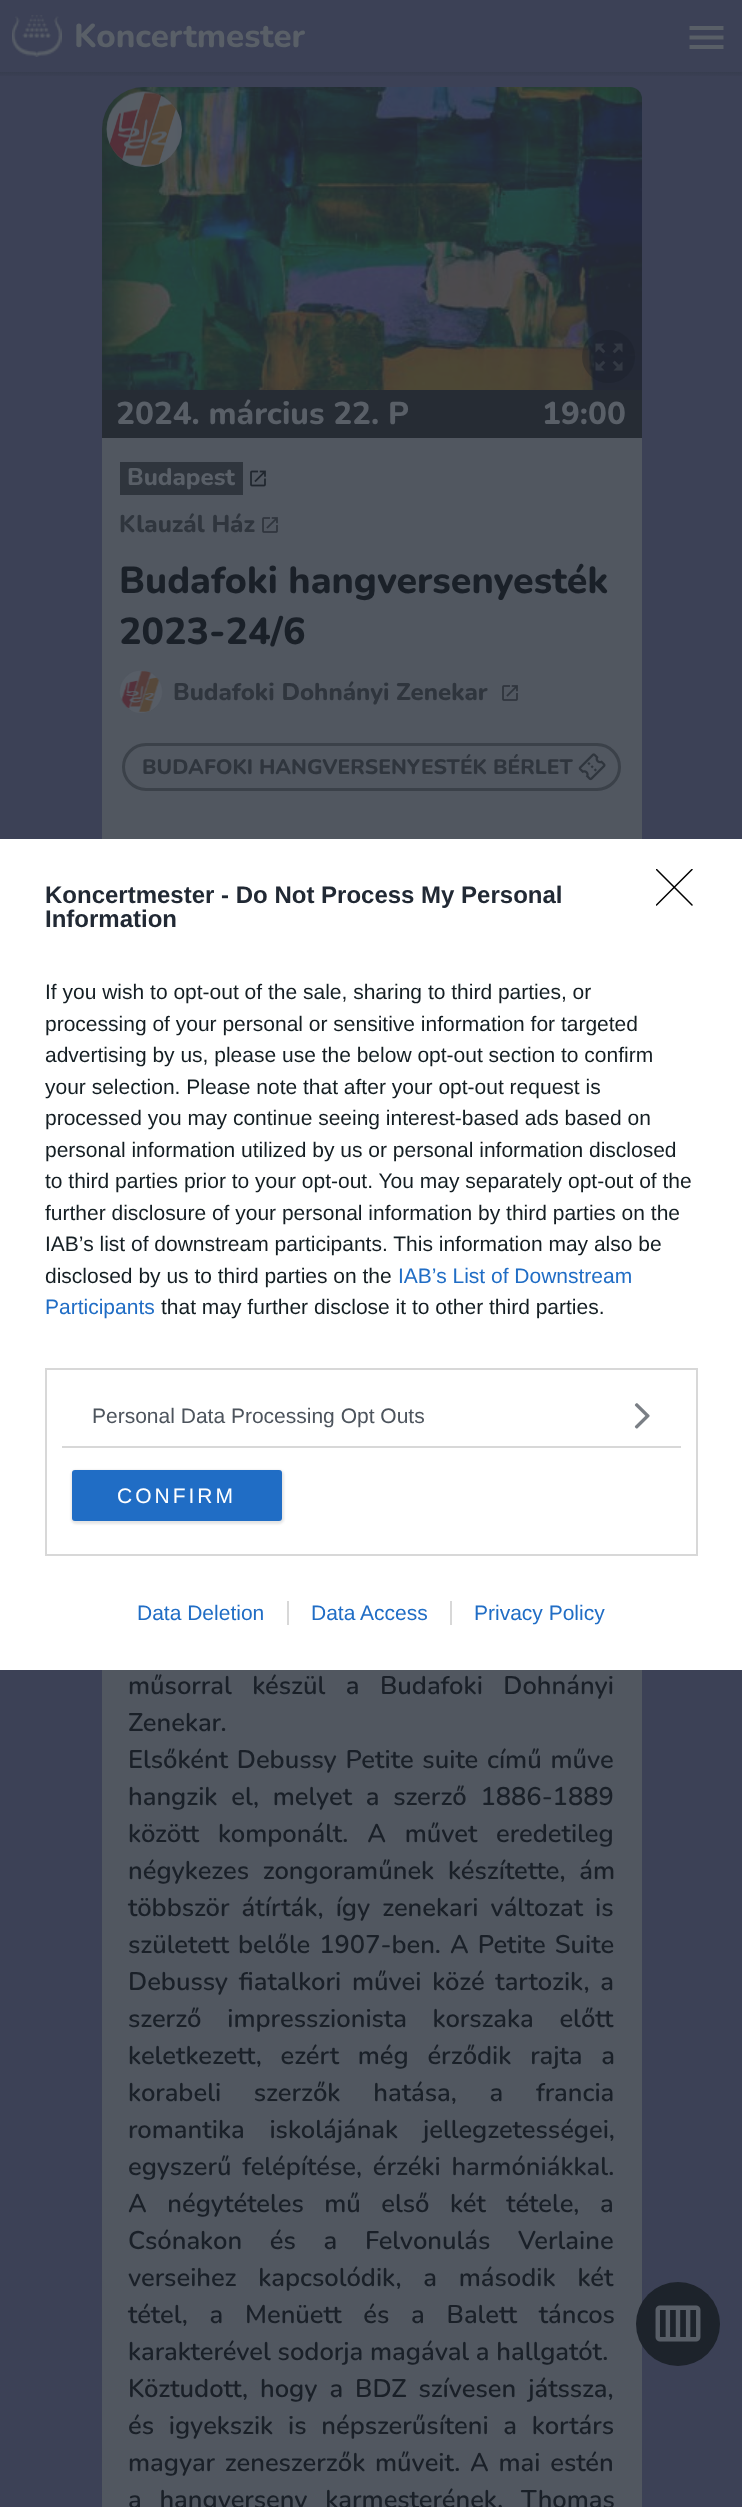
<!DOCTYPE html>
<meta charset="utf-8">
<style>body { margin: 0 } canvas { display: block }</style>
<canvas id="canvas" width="742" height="2507"></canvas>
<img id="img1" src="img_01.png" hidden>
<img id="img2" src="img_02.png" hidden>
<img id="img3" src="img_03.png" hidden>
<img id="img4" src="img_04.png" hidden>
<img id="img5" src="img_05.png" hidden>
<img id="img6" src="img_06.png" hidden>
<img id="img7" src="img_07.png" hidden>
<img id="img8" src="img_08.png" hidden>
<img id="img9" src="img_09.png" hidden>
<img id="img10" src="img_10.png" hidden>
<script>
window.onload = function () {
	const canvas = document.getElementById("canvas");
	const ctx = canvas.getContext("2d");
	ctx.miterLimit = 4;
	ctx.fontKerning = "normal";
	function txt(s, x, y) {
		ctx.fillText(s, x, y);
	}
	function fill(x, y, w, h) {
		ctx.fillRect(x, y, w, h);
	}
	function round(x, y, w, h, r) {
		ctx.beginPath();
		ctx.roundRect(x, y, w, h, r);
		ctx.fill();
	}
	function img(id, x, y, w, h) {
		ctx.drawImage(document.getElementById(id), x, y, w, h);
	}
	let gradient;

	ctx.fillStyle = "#3C4156";
	fill(0, 0, 742, 2507);
	img("img1", 12, 15, 50, 42);
	ctx.fillStyle = "#595F67";
	ctx.beginPath();
	ctx.moveTo(689.5, 26);
	ctx.lineTo(723.5, 26);
	ctx.lineTo(723.5, 30);
	ctx.lineTo(689.5, 30);
	ctx.closePath();
	ctx.moveTo(689.5, 39.5);
	ctx.lineTo(689.5, 35.5);
	ctx.lineTo(723.5, 35.5);
	ctx.lineTo(723.5, 39.5);
	ctx.closePath();
	ctx.moveTo(689.5, 49);
	ctx.lineTo(689.5, 45);
	ctx.lineTo(723.5, 45);
	ctx.lineTo(723.5, 49);
	ctx.closePath();
	ctx.fill();
	gradient = ctx.createLinearGradient(371, 78, 371, 72);
	gradient.addColorStop(0, "#3C4156");
	gradient.addColorStop(1, "#373D4F");
	ctx.fillStyle = gradient;
	fill(0, 72, 742, 4);
	img("img2", 102, 87, 540, 303);
	ctx.fillStyle = "rgba(25, 31, 39, 0.35)";
	ctx.beginPath();
	ctx.arc(608.5, 356.5, 26.5, 0, Math.PI * 2);
	ctx.fill();
	img("img3", 595, 343, 28, 28);
	ctx.fillStyle = "rgba(89, 95, 103, 0.8)";
	ctx.beginPath();
	ctx.arc(144.5, 129.5, 37.5, 0, Math.PI * 2);
	ctx.fill();
	img("img4", 106, 91, 76, 76);
	ctx.fillStyle = "#262C34";
	fill(102, 390, 540, 48);
	ctx.fillStyle = "#515760";
	fill(102, 438, 540, 2069);
	ctx.fillStyle = "#2F353D";
	fill(120, 462, 123, 33);
	img("img5", 250, 470, 16, 17);
	img("img6", 262, 517, 16, 16);
	ctx.fillStyle = "#575D65";
	ctx.beginPath();
	ctx.arc(141, 692, 21, 0, Math.PI * 2);
	ctx.fill();
	img("img7", 119, 670, 44, 43);
	img("img6", 502, 685, 16, 16);
	ctx.beginPath();
	ctx.roundRect(123.5, 744.5, 496, 45, 22.5);
	ctx.strokeStyle = "#3B4149";
	ctx.lineWidth = 3;
	ctx.stroke();
	img("img8", 578, 753, 28, 28);
	ctx.fillStyle = "#1D232B";
	ctx.beginPath();
	ctx.arc(678, 2324, 42, 0, Math.PI * 2);
	ctx.fill();
	img("img9", 655, 2305, 46, 37);
	ctx.fillStyle = "#FFFFFF";
	fill(0, 839, 742, 831);
	ctx.save();
	ctx.beginPath();
	ctx.rect(656, 869, 37, 37);
	ctx.clip();
	ctx.beginPath();
	ctx.moveTo(656.5, 869.5);
	ctx.lineTo(692, 905);
	ctx.moveTo(692, 869.5);
	ctx.lineTo(656.5, 905);
	ctx.strokeStyle = "#000000";
	ctx.lineWidth = 1.5;
	ctx.lineCap = "round";
	ctx.lineJoin = "round";
	ctx.stroke();
	ctx.restore();
	ctx.strokeStyle = "#D8D8D8";
	ctx.lineWidth = 2;
	ctx.strokeRect(46, 1369, 651, 186);
	ctx.fillStyle = "#D8D8D8";
	fill(62, 1446, 619, 2);
	img("img10", 634, 1403, 16, 26);
	ctx.fillStyle = "rgba(0, 0, 0, 0.1)";
	ctx.filter = "blur(1px)";
	ctx.beginPath();
	ctx.roundRect(71, 1470, 213, 54, 5);
	ctx.fill();
	ctx.filter = "none";
	ctx.fillStyle = "#206DC5";
	round(72, 1470, 210, 51, 3);
	ctx.fillStyle = "#D8D8D8";
	fill(287, 1601, 2, 24);
	fill(450, 1601, 2, 24);
	ctx.font = "800 33px Nunito";
	ctx.fillStyle = "#595F67";
	txt("Koncertmester", 74, 47);
	ctx.font = "800 31.5px Nunito";
	txt("2024. március 22. P", 116, 424);
	txt("19:00", 542, 424);
	ctx.font = "800 24px Nunito";
	txt("Budapest", 127, 485);
	ctx.fillStyle = "#2F353D";
	txt("Klauzál Ház", 119, 532);
	ctx.font = "800 37.5px Nunito";
	ctx.fillStyle = "#1A2028";
	txt("Budafoki hangversenyesték", 119, 593);
	txt("2023-24/6", 119, 644);
	ctx.font = "800 24px Nunito";
	ctx.fillStyle = "#2F353D";
	txt("Budafoki Dohnányi Zenekar", 173, 700);
	ctx.font = "800 21px Nunito";
	txt("BUDAFOKI HANGVERSENYESTÉK BÉRLET", 142, 774);
	ctx.wordSpacing = "13.75px";
	ctx.font = "600 25.5px Nunito";
	ctx.fillStyle = "#1A2028";
	txt("műsorral készül a Budafoki Dohnányi", 128, 1694);
	ctx.wordSpacing = "0px";
	txt("Zenekar.", 128, 1731);
	ctx.wordSpacing = "2px";
	txt("Elsőként Debussy Petite suite című műve", 128, 1768);
	ctx.wordSpacing = "7px";
	txt("hangzik el, melyet a szerző 1886-1889", 128, 1805);
	ctx.wordSpacing = "12px";
	txt("között komponált. A művet eredetileg", 128, 1842);
	ctx.wordSpacing = "7px";
	txt("négykezes zongoraműnek készítette, ám", 128, 1879);
	ctx.wordSpacing = "5.25px";
	txt("többször átírták, így zenekari változat is", 128, 1916);
	ctx.wordSpacing = "2.25px";
	txt("született belőle 1907-ben. A Petite Suite", 128, 1953);
	ctx.wordSpacing = "4px";
	txt("Debussy fiatalkori művei közé tartozik, a", 128, 1990);
	ctx.wordSpacing = "19px";
	txt("szerző impresszionista korszaka előtt", 128, 2027);
	ctx.wordSpacing = "12px";
	txt("keletkezett, ezért még érződik rajta a", 128, 2064);
	ctx.wordSpacing = "26px";
	txt("korabeli szerzők hatása, a francia", 128, 2101);
	ctx.wordSpacing = "18px";
	txt("romantika iskolájának jellegzetességei,", 128, 2138);
	ctx.wordSpacing = "4px";
	txt("egyszerű felépítése, érzéki harmóniákkal.", 128, 2175);
	ctx.wordSpacing = "13.75px";
	txt("A négytételes mű első két tétele, a", 128, 2212);
	ctx.wordSpacing = "21px";
	txt("Csónakon és a Felvonulás Verlaine", 128, 2249);
	ctx.wordSpacing = "15px";
	txt("verseihez kapcsolódik, a második két", 128, 2286);
	txt("tétel, a Menüett és a Balett táncos", 128, 2323);
	ctx.wordSpacing = "0px";
	txt("karakterével sodorja magával a hallgatót.", 128, 2360);
	ctx.wordSpacing = "5.25px";
	txt("Köztudott, hogy a BDZ szívesen játssza,", 128, 2397);
	ctx.wordSpacing = "8px";
	txt("és igyekszik is népszerűsíteni a kortárs", 128, 2434);
	ctx.wordSpacing = "3px";
	txt("magyar zeneszerzők műveit. A mai estén", 128, 2471);
	ctx.wordSpacing = "11px";
	txt("a hangverseny karmesterének, Thomas", 128, 2508);
	ctx.wordSpacing = "0px";
	ctx.font = "bold 24px Liberation Sans";
	ctx.fillStyle = "#212934";
	txt("Koncertmester - Do Not Process My Personal", 45, 903);
	txt("Information", 45, 927);
	ctx.font = "21px Liberation Sans";
	ctx.fillStyle = "#141E23";
	txt("If you wish to opt-out of the sale, sharing to third parties, or", 45, 999);
	txt("processing of your personal or sensitive information for targeted", 45, 1031);
	txt("advertising by us, please use the below opt-out section to confirm", 45, 1062);
	txt("your selection. Please note that after your opt-out request is", 45, 1094);
	txt("processed you may continue seeing interest-based ads based on", 45, 1125);
	txt("personal information utilized by us or personal information disclosed", 45, 1157);
	txt("to third parties prior to your opt-out. You may separately opt-out of the", 45, 1188);
	txt("further disclosure of your personal information by third parties on the", 45, 1220);
	txt("IAB’s list of downstream participants. This information may also be", 45, 1251);
	txt("disclosed by us to third parties on the", 45, 1283);
	ctx.fillStyle = "#206DC5";
	txt("IAB’s List of Downstream", 398, 1283);
	txt("Participants", 45, 1314);
	ctx.fillStyle = "#141E23";
	txt("that may further disclose it to other third parties.", 161, 1314);
	ctx.fillStyle = "#4D545D";
	txt("Personal Data Processing Opt Outs", 92, 1423);
	ctx.letterSpacing = "3px";
	ctx.fillStyle = "#FFFFFF";
	txt("CONFIRM", 117, 1503);
	ctx.letterSpacing = "0px";
	ctx.fillStyle = "#206DC5";
	txt("Data Deletion", 137, 1620);
	txt("Data Access", 311, 1620);
	txt("Privacy Policy", 474, 1620);
};
</script>
